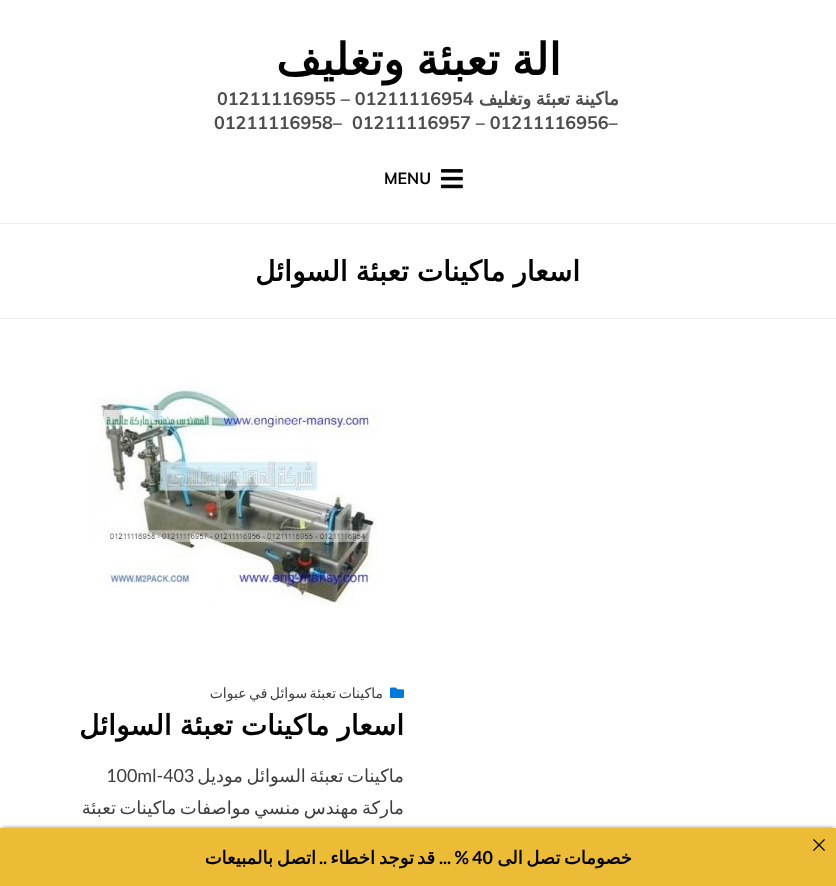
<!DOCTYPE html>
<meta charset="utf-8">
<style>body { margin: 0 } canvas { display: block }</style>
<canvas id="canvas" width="836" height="886"></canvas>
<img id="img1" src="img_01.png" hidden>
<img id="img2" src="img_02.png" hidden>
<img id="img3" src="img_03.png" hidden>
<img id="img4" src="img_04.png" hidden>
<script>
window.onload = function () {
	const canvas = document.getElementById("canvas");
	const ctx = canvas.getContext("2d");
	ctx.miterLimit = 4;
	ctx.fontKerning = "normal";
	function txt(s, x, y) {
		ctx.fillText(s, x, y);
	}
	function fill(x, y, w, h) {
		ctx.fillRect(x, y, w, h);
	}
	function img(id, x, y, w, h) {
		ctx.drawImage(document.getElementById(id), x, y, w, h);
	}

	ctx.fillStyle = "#FFFFFF";
	fill(0, 0, 836, 886);
	img("img1", 441, 169, 22, 20);
	ctx.fillStyle = "#EEEEEE";
	fill(0, 223, 836, 1);
	fill(0, 318, 836, 1);
	img("img2", 89, 383, 288, 223);
	img("img3", 390, 687, 14, 11);
	ctx.fillStyle = "rgba(0, 0, 0, 0.5)";
	ctx.filter = "blur(2px)";
	ctx.beginPath();
	ctx.rect(2, 828, 832, 54);
	ctx.fill();
	ctx.filter = "none";
	ctx.fillStyle = "#EDBC36";
	fill(0, 828, 836, 58);
	img("img4", 813, 839, 12, 12);
	ctx.wordSpacing = "-2px";
	ctx.direction = "rtl";
	ctx.font = "bold 44px DejaVu Sans";
	ctx.fillStyle = "#020202";
	txt("الة تعبئة وتغليف", 561, 75);
	ctx.wordSpacing = "-1px";
	ctx.font = "bold 18px DejaVu Sans";
	ctx.fillStyle = "#4D4D4D";
	txt("ماكينة تعبئة وتغليف", 619, 105);
	ctx.wordSpacing = "0px";
	ctx.direction = "ltr";
	ctx.font = "bold 18px Muli";
	txt("01211116955 – 01211116954", 217, 105);
	txt("01211116957 – 01211116956–", 352, 129);
	txt("01211116958–", 214, 129);
	ctx.font = "bold 16px Muli";
	ctx.fillStyle = "#020202";
	txt("MENU", 384, 184);
	ctx.wordSpacing = "-1px";
	ctx.direction = "rtl";
	ctx.font = "bold 28px DejaVu Sans";
	txt("اسعار ماكينات تعبئة السوائل", 580, 281);
	ctx.wordSpacing = "-2px";
	ctx.font = "14px DejaVu Sans";
	ctx.fillStyle = "#3D3D3D";
	txt("ماكينات تعبئة سوائل في عبوات", 383, 698);
	ctx.wordSpacing = "-1px";
	ctx.font = "bold 28px DejaVu Sans";
	ctx.fillStyle = "#020202";
	txt("اسعار ماكينات تعبئة السوائل", 404, 735);
	ctx.wordSpacing = "-2.25px";
	ctx.font = "18px DejaVu Sans";
	ctx.fillStyle = "#3D3D3D";
	txt("ماكينات تعبئة السوائل موديل", 404, 782);
	ctx.wordSpacing = "0px";
	ctx.direction = "ltr";
	ctx.font = "18px Lato";
	txt("100ml-403", 106, 782);
	ctx.wordSpacing = "-2.25px";
	ctx.direction = "rtl";
	ctx.font = "18px DejaVu Sans";
	txt("ماركة مهندس منسي مواصفات ماكينات تعبئة", 404, 814);
	ctx.font = "bold 18px DejaVu Sans";
	ctx.fillStyle = "#020202";
	txt("خصومات تصل الى", 632, 864);
	ctx.wordSpacing = "0px";
	ctx.direction = "ltr";
	ctx.font = "bold 18px Lato";
	txt("40", 472, 864);
	ctx.direction = "rtl";
	txt("% ...", 469, 864);
	ctx.font = "bold 18px DejaVu Sans";
	txt("قد", 435, 864);
	txt("توجد", 414, 864);
	txt("اخطاء", 375, 864);
	ctx.font = "bold 18px Lato";
	txt("..", 327, 864);
	ctx.font = "bold 18px DejaVu Sans";
	txt("اتصل", 316, 864);
	txt("بالمبيعات", 273, 864);
};
</script>
